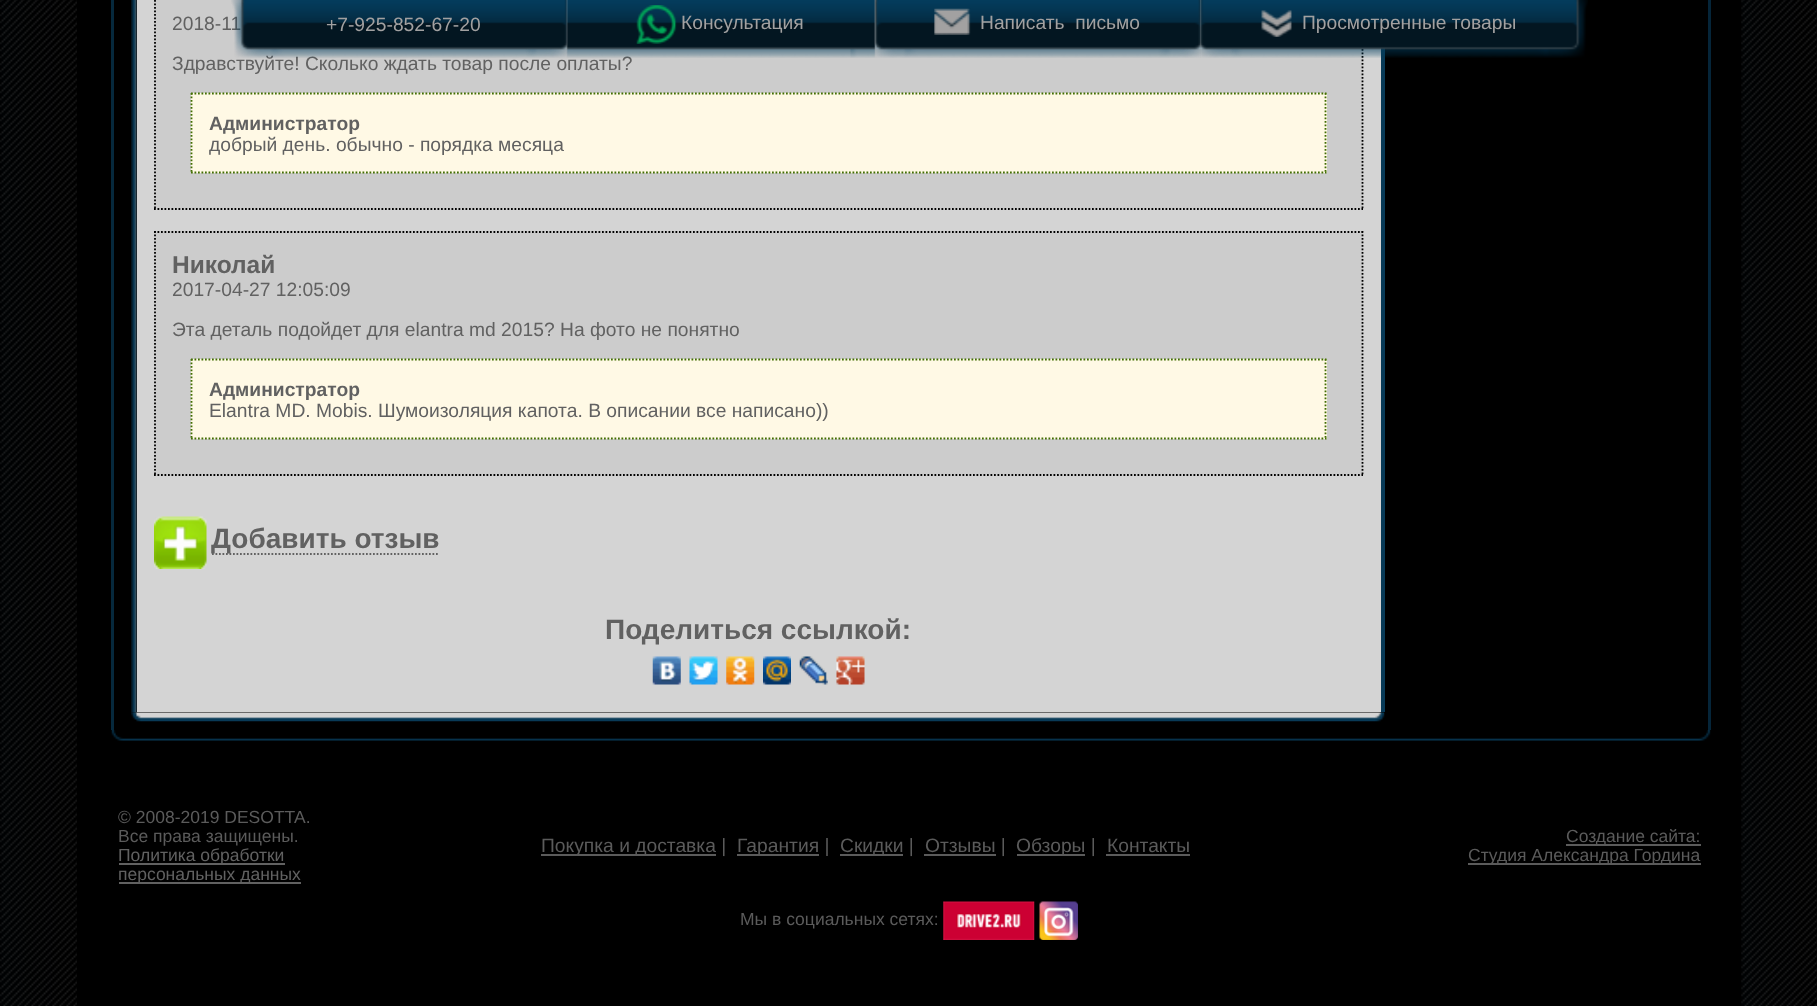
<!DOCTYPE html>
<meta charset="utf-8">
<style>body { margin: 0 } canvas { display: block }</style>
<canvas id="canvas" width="1817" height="1006"></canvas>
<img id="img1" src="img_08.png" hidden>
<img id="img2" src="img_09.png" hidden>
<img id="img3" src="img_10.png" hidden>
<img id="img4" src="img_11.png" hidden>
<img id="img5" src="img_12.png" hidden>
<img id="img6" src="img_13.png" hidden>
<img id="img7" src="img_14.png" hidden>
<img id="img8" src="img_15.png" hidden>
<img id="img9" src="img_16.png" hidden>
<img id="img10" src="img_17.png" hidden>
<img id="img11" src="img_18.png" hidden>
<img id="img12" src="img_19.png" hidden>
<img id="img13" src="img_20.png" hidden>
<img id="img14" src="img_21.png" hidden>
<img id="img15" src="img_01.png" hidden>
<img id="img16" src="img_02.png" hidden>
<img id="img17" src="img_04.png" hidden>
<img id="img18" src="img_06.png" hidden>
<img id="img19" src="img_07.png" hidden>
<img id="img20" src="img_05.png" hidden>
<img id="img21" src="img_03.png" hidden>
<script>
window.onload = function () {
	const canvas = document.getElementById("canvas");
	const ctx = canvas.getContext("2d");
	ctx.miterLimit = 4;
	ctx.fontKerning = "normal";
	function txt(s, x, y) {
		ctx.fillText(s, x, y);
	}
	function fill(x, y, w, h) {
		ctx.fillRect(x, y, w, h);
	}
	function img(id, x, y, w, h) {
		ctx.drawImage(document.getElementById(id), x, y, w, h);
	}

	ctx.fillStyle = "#000000";
	fill(0, 0, 1817, 1006);
	img("img1", 0, 0, 77, 1006);
	ctx.fillStyle = "#06293D";
	fill(111, 0, 3, 730);
	img("img2", 131, 0, 6, 713);
	ctx.fillStyle = "#D4D4D4";
	fill(137, 0, 1244, 712);
	ctx.fillStyle = "#CCCCCC";
	fill(154, 0, 1209, 210);
	ctx.beginPath();
	ctx.moveTo(1362.5, -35);
	ctx.lineTo(1362.5, 210);
	ctx.strokeStyle = "#000000";
	ctx.lineWidth = 1.8;
	ctx.setLineDash([1.75, 1.75]);
	ctx.stroke();
	ctx.beginPath();
	ctx.moveTo(154, 209);
	ctx.lineTo(1363, 209);
	ctx.stroke();
	ctx.beginPath();
	ctx.moveTo(155, -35);
	ctx.lineTo(155, 210);
	ctx.stroke();
	ctx.fillStyle = "#FFF9E5";
	fill(191, 93, 1136, 80);
	ctx.beginPath();
	ctx.moveTo(191, 93.5);
	ctx.lineTo(1326.5, 93.5);
	ctx.strokeStyle = "#406D03";
	ctx.stroke();
	ctx.beginPath();
	ctx.moveTo(1325.5, 93);
	ctx.lineTo(1325.5, 173);
	ctx.stroke();
	ctx.beginPath();
	ctx.moveTo(191, 172.5);
	ctx.lineTo(1326.5, 172.5);
	ctx.stroke();
	ctx.beginPath();
	ctx.moveTo(191.5, 93);
	ctx.lineTo(191.5, 173);
	ctx.stroke();
	ctx.fillStyle = "#CCCCCC";
	fill(154, 231, 1209, 245);
	ctx.beginPath();
	ctx.moveTo(154, 232);
	ctx.lineTo(1363, 232);
	ctx.strokeStyle = "#000000";
	ctx.stroke();
	ctx.beginPath();
	ctx.moveTo(1362.5, 231);
	ctx.lineTo(1362.5, 476);
	ctx.stroke();
	ctx.beginPath();
	ctx.moveTo(154, 475);
	ctx.lineTo(1363, 475);
	ctx.stroke();
	ctx.beginPath();
	ctx.moveTo(155, 231);
	ctx.lineTo(155, 476);
	ctx.stroke();
	ctx.fillStyle = "#FFF9E5";
	fill(191, 359, 1136, 80);
	ctx.beginPath();
	ctx.moveTo(191, 359.5);
	ctx.lineTo(1326.5, 359.5);
	ctx.strokeStyle = "#406D03";
	ctx.stroke();
	ctx.beginPath();
	ctx.moveTo(1325.5, 359);
	ctx.lineTo(1325.5, 439);
	ctx.stroke();
	ctx.beginPath();
	ctx.moveTo(191, 438.5);
	ctx.lineTo(1326.5, 438.5);
	ctx.stroke();
	ctx.beginPath();
	ctx.moveTo(191.5, 359);
	ctx.lineTo(191.5, 439);
	ctx.stroke();
	img("img3", 154, 516, 53, 53);
	ctx.beginPath();
	ctx.moveTo(212, 554);
	ctx.lineTo(439, 554);
	ctx.strokeStyle = "#616161";
	ctx.stroke();
	img("img4", 652, 656, 29, 29);
	img("img5", 689, 656, 29, 29);
	img("img6", 726, 656, 29, 29);
	img("img7", 763, 656, 28, 29);
	img("img8", 799, 656, 29, 29);
	img("img9", 836, 656, 29, 29);
	ctx.fillStyle = "#083A57";
	fill(1381, 48, 4, 664);
	img("img10", 131, 712, 1254, 10);
	ctx.fillStyle = "#052539";
	fill(1708, 0, 3, 730);
	img("img11", 111, 730, 1600, 11);
	ctx.fillStyle = "#616161";
	fill(119, 863, 166, 2);
	fill(119, 882, 182, 2);
	ctx.fillStyle = "#5B5B5B";
	fill(541, 854, 175, 2);
	fill(737, 854, 82, 2);
	fill(840, 854, 63, 2);
	fill(924, 854, 72, 2);
	fill(1017, 854, 68, 2);
	fill(1106, 854, 84, 2);
	fill(1566, 844, 135, 2);
	fill(1468, 863, 233, 2);
	img("img12", 943, 901, 92, 39);
	img("img13", 1039, 901, 39, 39);
	img("img14", 1741, 0, 76, 1006);
	ctx.font = "19.25px Liberation Sans";
	ctx.fillStyle = "#616161";
	txt("2018-11", 172, 30);
	txt("Здравствуйте! Сколько ждать товар после оплаты?", 172, 70);
	img("img15", 231, 0, 337, 58);
	img("img16", 566, 0, 310, 58);
	img("img17", 874, 0, 327, 58);
	img("img18", 1200, 0, 388, 58);
	ctx.fillStyle = "#A2A1A1";
	txt("Просмотренные товары", 1302, 29);
	img("img19", 1261, 10, 31, 27);
	txt("Написать  письмо", 980, 29);
	img("img20", 934, 8, 37, 27);
	txt("Консультация", 681, 29);
	img("img21", 636, 5, 41, 39);
	txt("+7-925-852-67-20", 326, 31);
	ctx.font = "bold 19.25px Liberation Sans";
	ctx.fillStyle = "#616161";
	txt("Администратор", 209, 130);
	ctx.font = "19.25px Liberation Sans";
	txt("добрый день. обычно - порядка месяца", 209, 151);
	ctx.font = "bold 24.5px Liberation Sans";
	txt("Николай", 172, 273);
	ctx.font = "19.25px Liberation Sans";
	txt("2017-04-27 12:05:09", 172, 296);
	txt("Эта деталь подойдет для elantra md 2015? На фото не понятно", 172, 336);
	ctx.font = "bold 19.25px Liberation Sans";
	txt("Администратор", 209, 396);
	ctx.font = "19.25px Liberation Sans";
	txt("Elantra MD. Mobis. Шумоизоляция капота. В описании все написано))", 209, 417);
	ctx.font = "bold 28px Liberation Sans";
	txt("Добавить отзыв", 211, 548);
	txt("Поделиться ссылкой:", 605, 639);
	ctx.font = "17.5px Liberation Sans";
	ctx.fillStyle = "#5B5B5B";
	txt("© 2008-2019 DESOTTA.", 118, 823);
	txt("Все права защищены.", 118, 842);
	ctx.fillStyle = "#616161";
	txt("Политика обработки", 118, 861);
	txt("персональных данных", 118, 880);
	ctx.font = "19.25px Liberation Sans";
	ctx.fillStyle = "#5B5B5B";
	txt("Покупка и доставка |", 541, 852);
	txt("Гарантия |", 737, 852);
	txt("Скидки |", 840, 852);
	txt("Отзывы |", 925, 852);
	txt("Обзоры |", 1016, 852);
	txt("Контакты", 1107, 852);
	ctx.font = "17.5px Liberation Sans";
	txt("Создание сайта:", 1566, 842);
	txt("Студия Александра Гордина", 1468, 861);
	txt("Мы в социальных сетях:", 740, 925);
};
</script>
